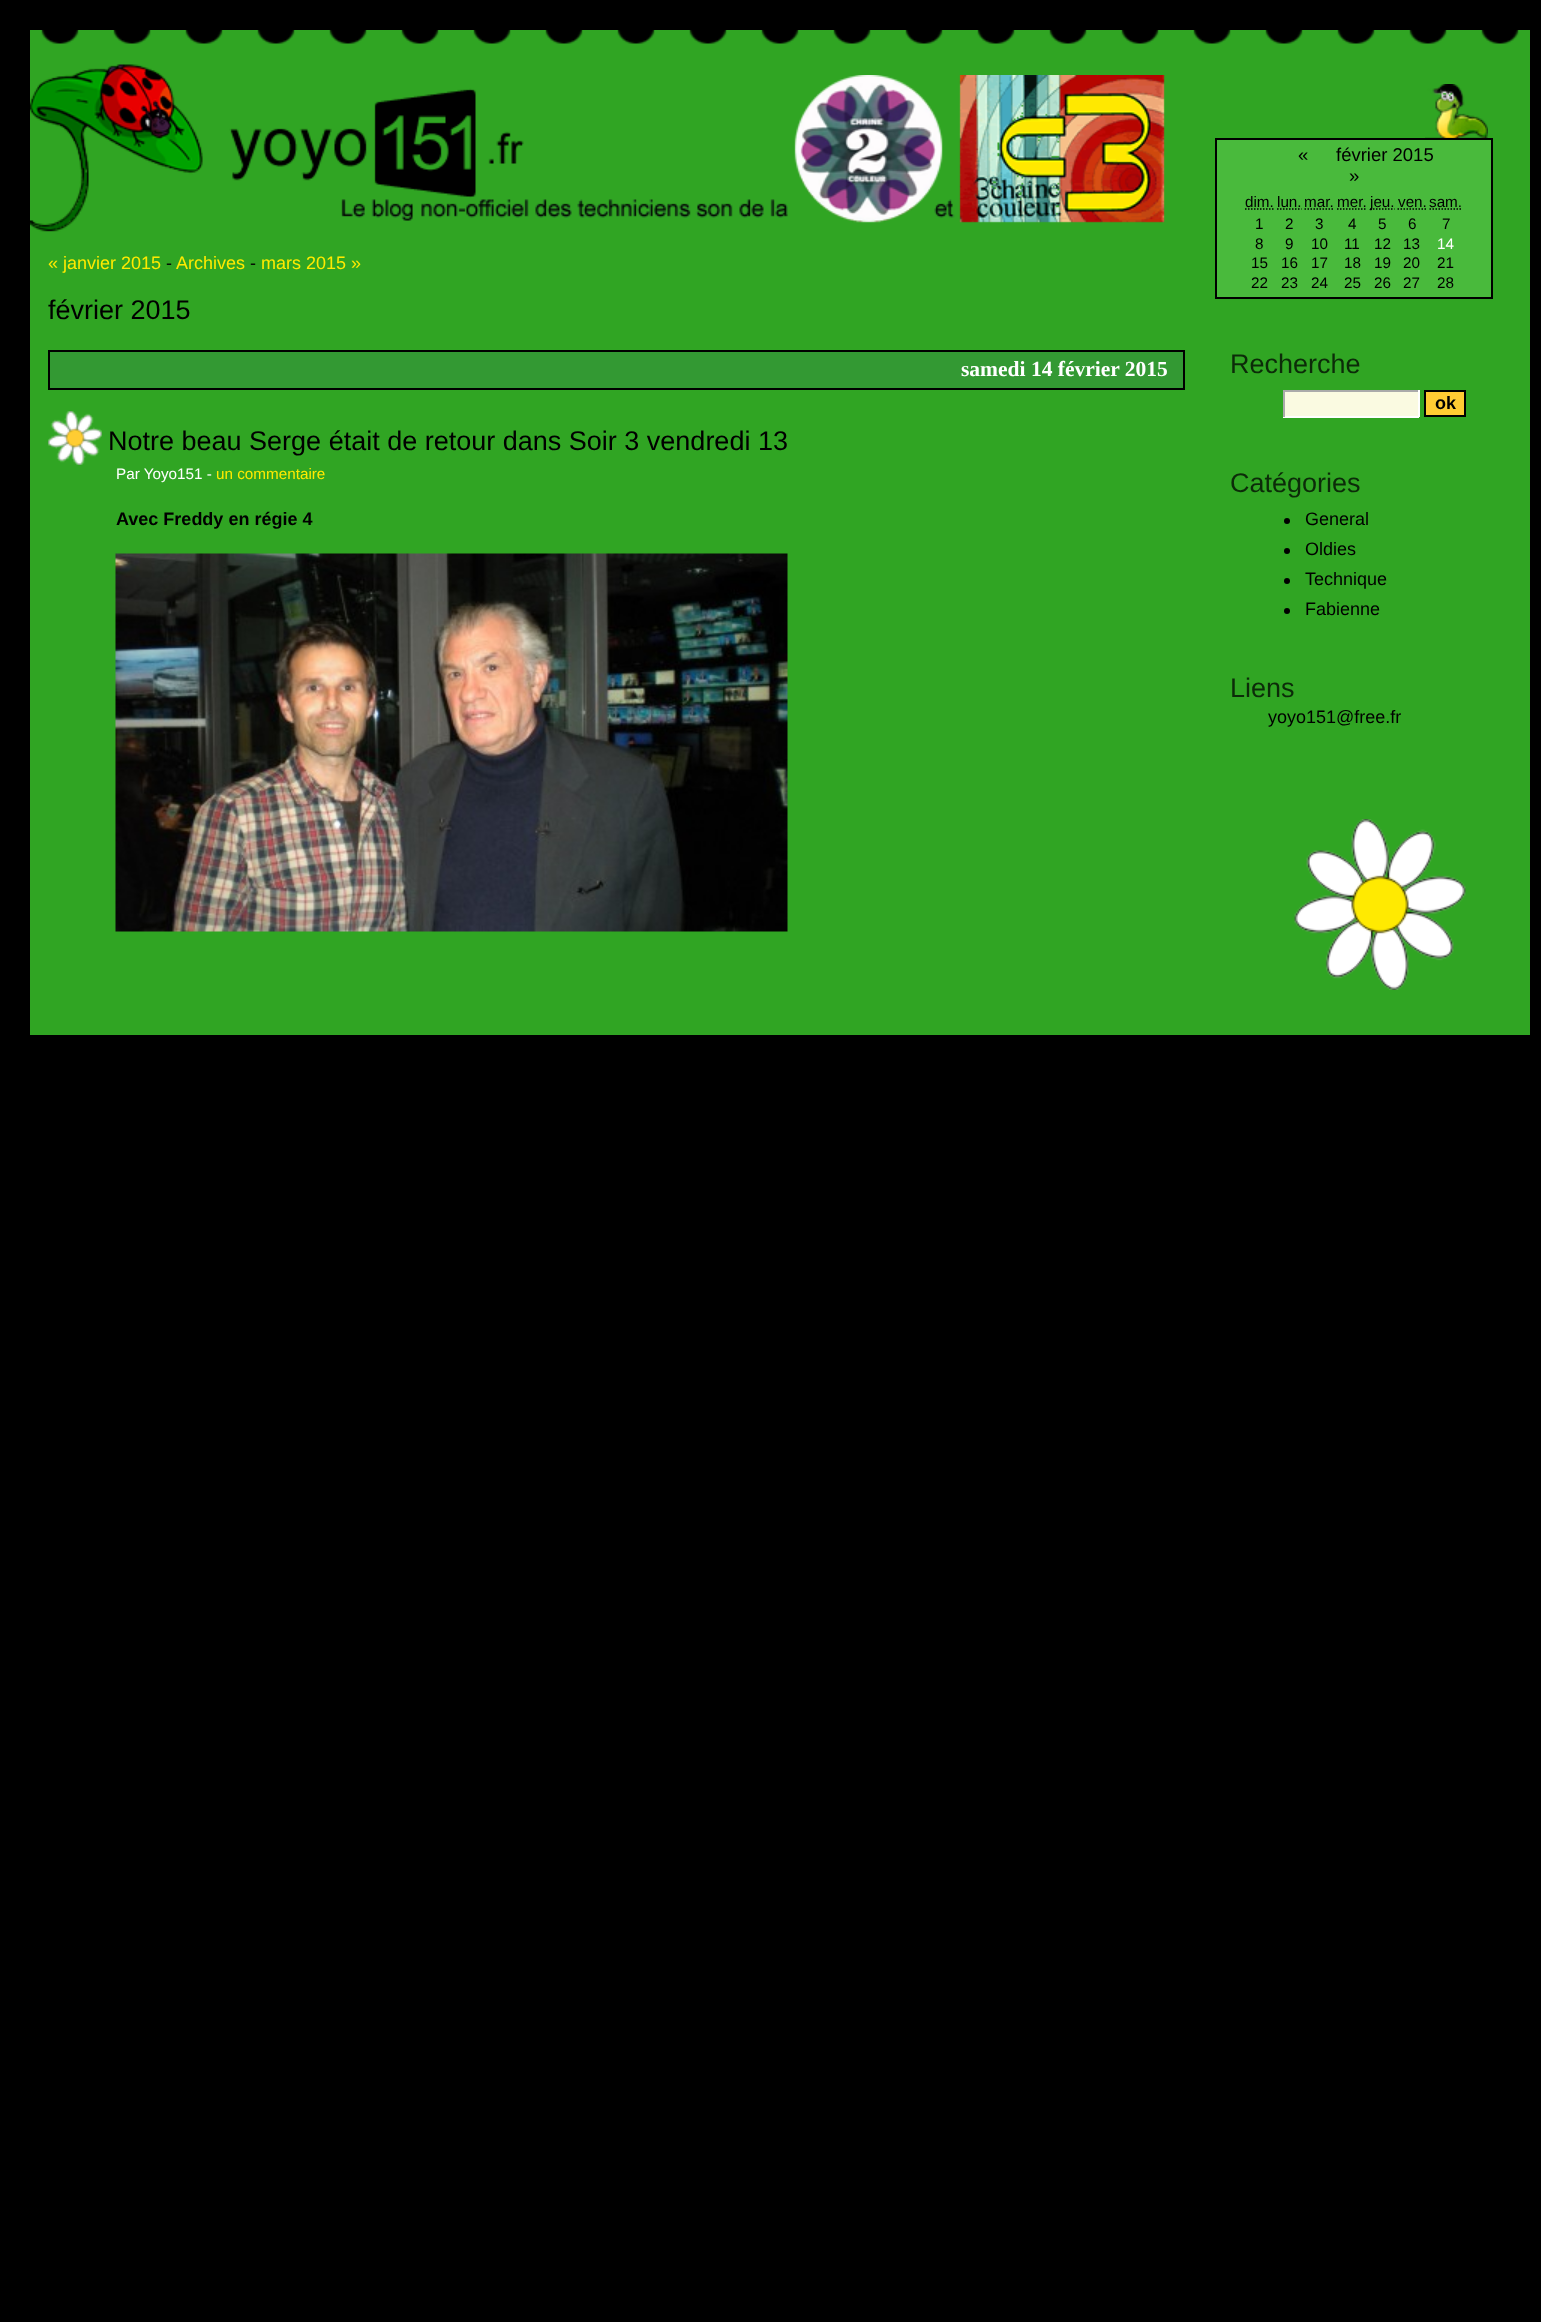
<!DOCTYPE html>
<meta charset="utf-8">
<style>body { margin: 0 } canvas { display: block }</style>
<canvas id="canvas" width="1541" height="2322"></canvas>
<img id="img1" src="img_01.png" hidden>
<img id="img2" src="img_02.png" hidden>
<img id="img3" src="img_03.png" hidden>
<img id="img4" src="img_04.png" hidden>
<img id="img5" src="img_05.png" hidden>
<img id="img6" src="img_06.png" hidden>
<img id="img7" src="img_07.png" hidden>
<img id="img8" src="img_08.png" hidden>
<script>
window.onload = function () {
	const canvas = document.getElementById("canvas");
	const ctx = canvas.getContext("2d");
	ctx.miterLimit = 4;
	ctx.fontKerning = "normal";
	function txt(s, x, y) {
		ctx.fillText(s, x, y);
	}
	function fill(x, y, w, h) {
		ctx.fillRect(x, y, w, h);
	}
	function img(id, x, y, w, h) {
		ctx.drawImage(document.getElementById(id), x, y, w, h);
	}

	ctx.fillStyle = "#000000";
	fill(0, 0, 1541, 2322);
	ctx.fillStyle = "#30A523";
	fill(30, 30, 1500, 1005);
	img("img1", 41, 30, 1478, 14);
	img("img2", 30, 64, 173, 168);
	img("img3", 341, 75, 824, 148);
	img("img4", 229, 88, 295, 110);
	ctx.fillStyle = "#339933";
	ctx.beginPath();
	ctx.rect(49, 351, 1135, 38);
	ctx.fill();
	ctx.strokeStyle = "#000000";
	ctx.lineWidth = 2;
	ctx.stroke();
	img("img5", 48, 411, 54, 54);
	img("img6", 115, 553, 673, 379);
	img("img7", 1294, 819, 172, 171);
	img("img8", 1425, 84, 63, 54);
	ctx.fillStyle = "#49BA3C";
	ctx.beginPath();
	ctx.rect(1216, 139, 276, 159);
	ctx.fill();
	ctx.stroke();
	ctx.beginPath();
	ctx.moveTo(1245, 209);
	ctx.lineTo(1274, 209);
	ctx.lineWidth = 1.5;
	ctx.setLineDash([1.5, 1.5]);
	ctx.stroke();
	ctx.beginPath();
	ctx.moveTo(1277, 209);
	ctx.lineTo(1301.5, 209);
	ctx.stroke();
	ctx.beginPath();
	ctx.moveTo(1304.5, 209);
	ctx.lineTo(1334, 209);
	ctx.stroke();
	ctx.beginPath();
	ctx.moveTo(1337, 209);
	ctx.lineTo(1367, 209);
	ctx.stroke();
	ctx.beginPath();
	ctx.moveTo(1370, 209);
	ctx.lineTo(1394.5, 209);
	ctx.stroke();
	ctx.beginPath();
	ctx.moveTo(1397.5, 209);
	ctx.lineTo(1426.5, 209);
	ctx.stroke();
	ctx.beginPath();
	ctx.moveTo(1429.5, 209);
	ctx.lineTo(1462.5, 209);
	ctx.stroke();
	ctx.fillStyle = "#FAFAE1";
	fill(1285, 392, 133, 24);
	ctx.fillStyle = "#AAAAAA";
	fill(1283, 390, 136, 2);
	ctx.fillStyle = "#FFFFFF";
	fill(1418, 390, 2, 27);
	fill(1283, 416, 136, 2);
	ctx.fillStyle = "#AAAAAA";
	fill(1283, 390, 2, 27);
	ctx.fillStyle = "#FFCC33";
	ctx.beginPath();
	ctx.rect(1425, 391, 40, 25);
	ctx.fill();
	ctx.lineWidth = 2;
	ctx.setLineDash([]);
	ctx.stroke();
	ctx.fillStyle = "#000000";
	ctx.beginPath();
	ctx.arc(1287, 521, 3, 0, Math.PI * 2);
	ctx.fill();
	ctx.beginPath();
	ctx.arc(1287, 551, 3, 0, Math.PI * 2);
	ctx.fill();
	ctx.beginPath();
	ctx.arc(1287, 581, 3, 0, Math.PI * 2);
	ctx.fill();
	ctx.beginPath();
	ctx.arc(1287, 611, 3, 0, Math.PI * 2);
	ctx.fill();
	ctx.font = "18px Liberation Sans";
	ctx.fillStyle = "#FFEA00";
	txt("« janvier 2015", 48, 269);
	ctx.fillStyle = "#000000";
	txt("-", 166, 269);
	ctx.fillStyle = "#FFEA00";
	txt("Archives", 176, 269);
	ctx.fillStyle = "#000000";
	txt("-", 250, 269);
	ctx.fillStyle = "#FFEA00";
	txt("mars 2015 »", 261, 269);
	ctx.font = "27px Liberation Sans";
	ctx.fillStyle = "#000000";
	txt("février 2015", 48, 319);
	ctx.font = "bold 21.5px Liberation Serif";
	ctx.fillStyle = "#FFFFFF";
	txt("samedi 14 février 2015", 961, 376);
	ctx.font = "27px Liberation Sans";
	ctx.fillStyle = "#000000";
	txt("Notre beau Serge était de retour dans Soir 3 vendredi 13", 108, 450);
	ctx.font = "15.25px Liberation Sans";
	ctx.fillStyle = "#FFFFFF";
	txt("Par Yoyo151 -", 116, 479);
	ctx.fillStyle = "#FFEA00";
	txt("un commentaire", 216, 479);
	ctx.font = "bold 18px Liberation Sans";
	ctx.fillStyle = "#000000";
	txt("Avec Freddy en régie 4", 116, 525);
	ctx.font = "18.5px Liberation Sans";
	txt("«", 1298, 161);
	txt("février 2015", 1336, 161);
	txt("»", 1349, 182);
	ctx.font = "15.25px Liberation Sans";
	txt("dim.", 1245, 207);
	txt("lun.", 1277, 207);
	txt("mar.", 1304, 207);
	txt("mer.", 1337, 207);
	txt("jeu.", 1370, 207);
	txt("ven.", 1398, 207);
	txt("sam.", 1429, 207);
	txt("1", 1255, 229);
	txt("2", 1285, 229);
	txt("3", 1315, 229);
	txt("4", 1348, 229);
	txt("5", 1378, 229);
	txt("6", 1408, 229);
	txt("7", 1442, 229);
	txt("8", 1255, 249);
	txt("9", 1285, 249);
	txt("10", 1311, 249);
	txt("11", 1344, 249);
	txt("12", 1374, 249);
	txt("13", 1403, 249);
	ctx.fillStyle = "#FFFFFF";
	txt("14", 1437, 249);
	ctx.fillStyle = "#000000";
	txt("15", 1251, 268);
	txt("16", 1281, 268);
	txt("17", 1311, 268);
	txt("18", 1344, 268);
	txt("19", 1374, 268);
	txt("20", 1403, 268);
	txt("21", 1437, 268);
	txt("22", 1251, 288);
	txt("23", 1281, 288);
	txt("24", 1311, 288);
	txt("25", 1344, 288);
	txt("26", 1374, 288);
	txt("27", 1403, 288);
	txt("28", 1437, 288);
	ctx.font = "27px Liberation Sans";
	ctx.fillStyle = "#0C2B09";
	txt("Recherche", 1230, 373);
	ctx.font = "bold 18px Liberation Sans";
	ctx.fillStyle = "#000000";
	txt("ok", 1435, 409);
	ctx.font = "27px Liberation Sans";
	ctx.fillStyle = "#0C2B09";
	txt("Catégories", 1230, 492);
	ctx.font = "18px Liberation Sans";
	ctx.fillStyle = "#000000";
	txt("General", 1305, 525);
	txt("Oldies", 1305, 555);
	txt("Technique", 1305, 585);
	txt("Fabienne", 1305, 615);
	ctx.font = "27px Liberation Sans";
	ctx.fillStyle = "#0C2B09";
	txt("Liens", 1230, 697);
	ctx.font = "18px Liberation Sans";
	ctx.fillStyle = "#000000";
	txt("yoyo151@free.fr", 1268, 723);
};
</script>
